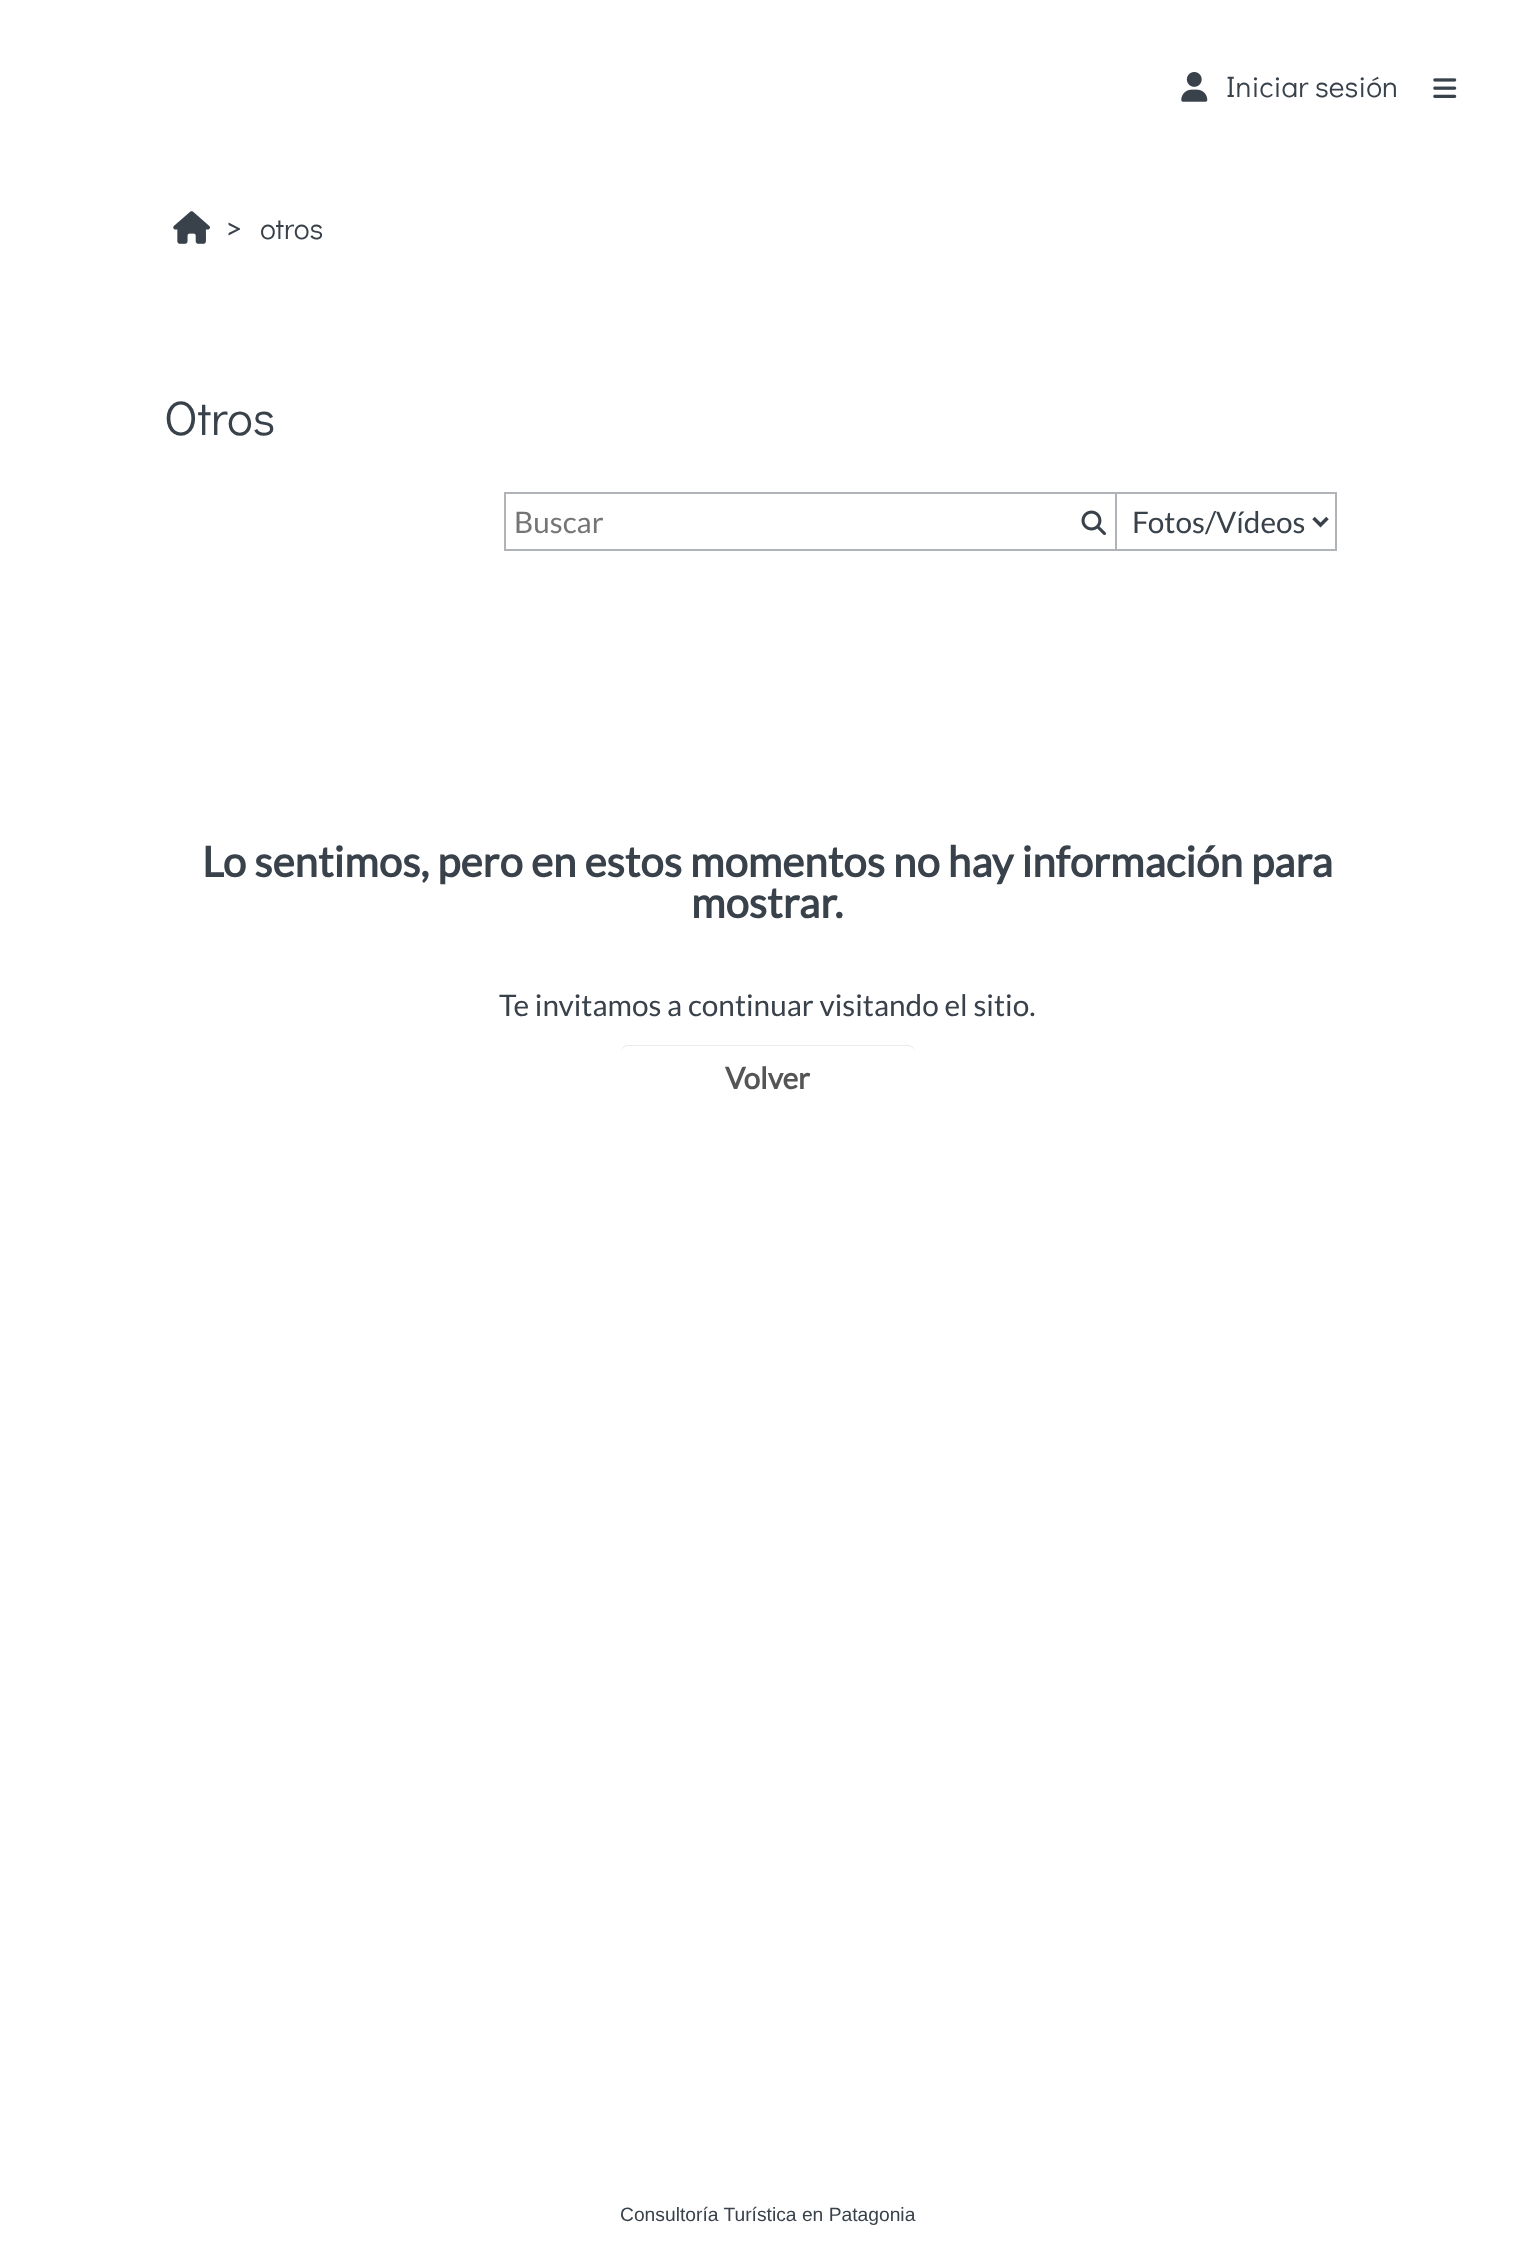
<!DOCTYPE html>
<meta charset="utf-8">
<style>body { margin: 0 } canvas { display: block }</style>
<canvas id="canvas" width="1534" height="2247"></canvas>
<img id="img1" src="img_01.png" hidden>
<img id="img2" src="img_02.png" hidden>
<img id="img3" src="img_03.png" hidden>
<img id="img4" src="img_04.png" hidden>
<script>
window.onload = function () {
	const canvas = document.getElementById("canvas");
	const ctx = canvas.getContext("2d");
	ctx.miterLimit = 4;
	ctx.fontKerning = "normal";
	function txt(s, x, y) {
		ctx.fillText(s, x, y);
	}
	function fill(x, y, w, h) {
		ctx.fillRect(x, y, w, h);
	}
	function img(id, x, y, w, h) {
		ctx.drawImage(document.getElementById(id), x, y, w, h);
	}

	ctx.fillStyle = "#FFFFFF";
	fill(0, 0, 1534, 2247);
	img("img1", 1181, 72, 27, 30);
	img("img2", 1433, 78, 24, 20);
	img("img3", 173, 211, 37, 33);
	ctx.strokeStyle = "#B0B3B7";
	ctx.lineWidth = 2;
	ctx.strokeRect(1116, 493, 220, 57);
	ctx.strokeRect(505, 493, 611, 57);
	img("img4", 1081, 510, 25, 25);
	ctx.beginPath();
	ctx.moveTo(1313.5, 518);
	ctx.lineTo(1320.5, 525);
	ctx.lineTo(1327.5, 518);
	ctx.strokeStyle = "#39414A";
	ctx.lineWidth = 3.5;
	ctx.stroke();
	ctx.fillStyle = "#ECECEC";
	ctx.beginPath();
	ctx.moveTo(628, 1046);
	ctx.lineTo(908, 1046);
	ctx.bezierCurveTo(912, 1046, 915, 1050, 915, 1054);
	ctx.bezierCurveTo(915, 1050, 914, 1046, 909, 1045);
	ctx.lineTo(627, 1045);
	ctx.bezierCurveTo(622, 1046, 621, 1050, 621, 1054);
	ctx.bezierCurveTo(621, 1050, 624, 1046, 628, 1046);
	ctx.closePath();
	ctx.fill();
	ctx.font = "29.75px Didact Gothic";
	ctx.fillStyle = "#39414A";
	txt("Iniciar sesión", 1226, 97);
	ctx.font = "29.75px Lato";
	txt(">", 225, 239);
	ctx.font = "29.75px Didact Gothic";
	txt("otros", 260, 239);
	ctx.font = "48.5px Didact Gothic";
	txt("Otros", 164, 435);
	ctx.font = "29.75px Lato";
	ctx.fillStyle = "#757575";
	txt("Buscar", 514, 533);
	ctx.fillStyle = "#39414A";
	txt("Fotos/Vídeos", 1132, 533);
	ctx.font = "bold 42px Lato";
	txt("Lo sentimos, pero en estos momentos no hay información para", 202, 877);
	txt("mostrar.", 691, 918);
	ctx.font = "29.75px Lato";
	txt("Te invitamos a continuar visitando el sitio.", 499, 1016);
	ctx.font = "bold 29.75px Lato";
	ctx.fillStyle = "#555555";
	txt("Volver", 725, 1089);
	ctx.font = "19.25px Liberation Sans";
	ctx.fillStyle = "#39414A";
	txt("Consultoría Turística en Patagonia", 620, 2221);
};
</script>
